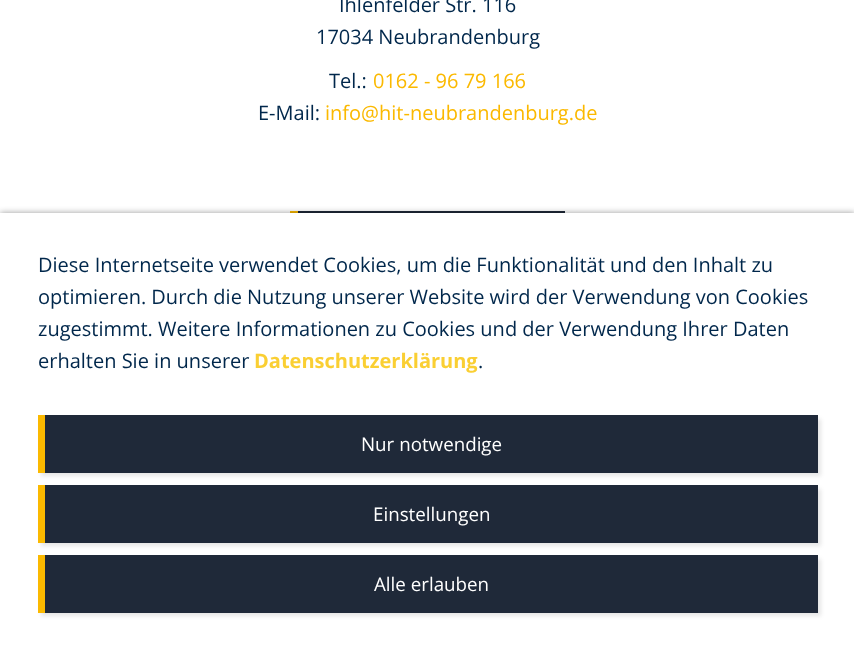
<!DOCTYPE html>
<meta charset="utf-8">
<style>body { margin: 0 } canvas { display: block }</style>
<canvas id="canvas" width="854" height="650"></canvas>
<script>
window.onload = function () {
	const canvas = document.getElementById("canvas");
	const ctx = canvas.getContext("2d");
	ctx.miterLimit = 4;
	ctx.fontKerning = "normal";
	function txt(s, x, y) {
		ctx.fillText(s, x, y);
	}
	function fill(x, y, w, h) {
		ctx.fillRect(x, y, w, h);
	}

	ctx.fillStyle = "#FFFFFF";
	fill(0, 0, 854, 650);
	ctx.fillStyle = "#1F2939";
	fill(298, 211, 267, 2);
	ctx.fillStyle = "#FBB900";
	fill(290, 211, 8, 2);
	ctx.fillStyle = "rgba(0, 0, 0, 0.4)";
	ctx.filter = "blur(3px)";
	ctx.beginPath();
	ctx.rect(0, 213, 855, 437);
	ctx.fill();
	ctx.filter = "none";
	ctx.fillStyle = "#FFFFFF";
	fill(0, 213, 854, 437);
	ctx.fillStyle = "rgba(0, 0, 0, 0.1)";
	ctx.filter = "blur(2px)";
	ctx.beginPath();
	ctx.rect(41, 419, 780, 57);
	ctx.fill();
	ctx.filter = "none";
	ctx.fillStyle = "#1F2939";
	fill(45, 415, 773, 58);
	ctx.fillStyle = "#FBB900";
	fill(38, 415, 7, 58);
	ctx.fillStyle = "rgba(0, 0, 0, 0.1)";
	ctx.filter = "blur(2px)";
	ctx.beginPath();
	ctx.rect(41, 489, 780, 57);
	ctx.fill();
	ctx.filter = "none";
	ctx.fillStyle = "#1F2939";
	fill(45, 485, 773, 58);
	ctx.fillStyle = "#FBB900";
	fill(38, 485, 7, 58);
	ctx.fillStyle = "rgba(0, 0, 0, 0.1)";
	ctx.filter = "blur(2px)";
	ctx.beginPath();
	ctx.rect(41, 559, 780, 57);
	ctx.fill();
	ctx.filter = "none";
	ctx.fillStyle = "#1F2939";
	fill(45, 555, 773, 58);
	ctx.fillStyle = "#FBB900";
	fill(38, 555, 7, 58);
	ctx.font = "20px Open Sans";
	ctx.fillStyle = "#00274B";
	txt("Ihlenfelder Str. 116", 339, 12);
	txt("17034 Neubrandenburg", 316, 44);
	txt("Tel.:", 329, 88);
	ctx.fillStyle = "#FBB900";
	txt("0162 - 96 79 166", 373, 88);
	ctx.fillStyle = "#00274B";
	txt("E-Mail:", 258, 120);
	ctx.fillStyle = "#FBB900";
	txt("info@hit-neubrandenburg.de", 325, 120);
	ctx.fillStyle = "#00274B";
	txt("Diese Internetseite verwendet Cookies, um die Funktionalität und den Inhalt zu", 38, 272);
	txt("optimieren. Durch die Nutzung unserer Website wird der Verwendung von Cookies", 38, 304);
	txt("zugestimmt. Weitere Informationen zu Cookies und der Verwendung Ihrer Daten", 38, 336);
	txt("erhalten Sie in unserer", 38, 368);
	ctx.font = "bold 20px Open Sans";
	ctx.fillStyle = "#FACF33";
	txt("Datenschutzerklärung", 254, 368);
	ctx.font = "20px Open Sans";
	ctx.fillStyle = "#00274B";
	txt(".", 478, 368);
	ctx.font = "18.75px Open Sans";
	ctx.fillStyle = "#FFFFFF";
	txt("Nur notwendige", 361, 451);
	txt("Einstellungen", 373, 521);
	txt("Alle erlauben", 374, 591);
};
</script>
